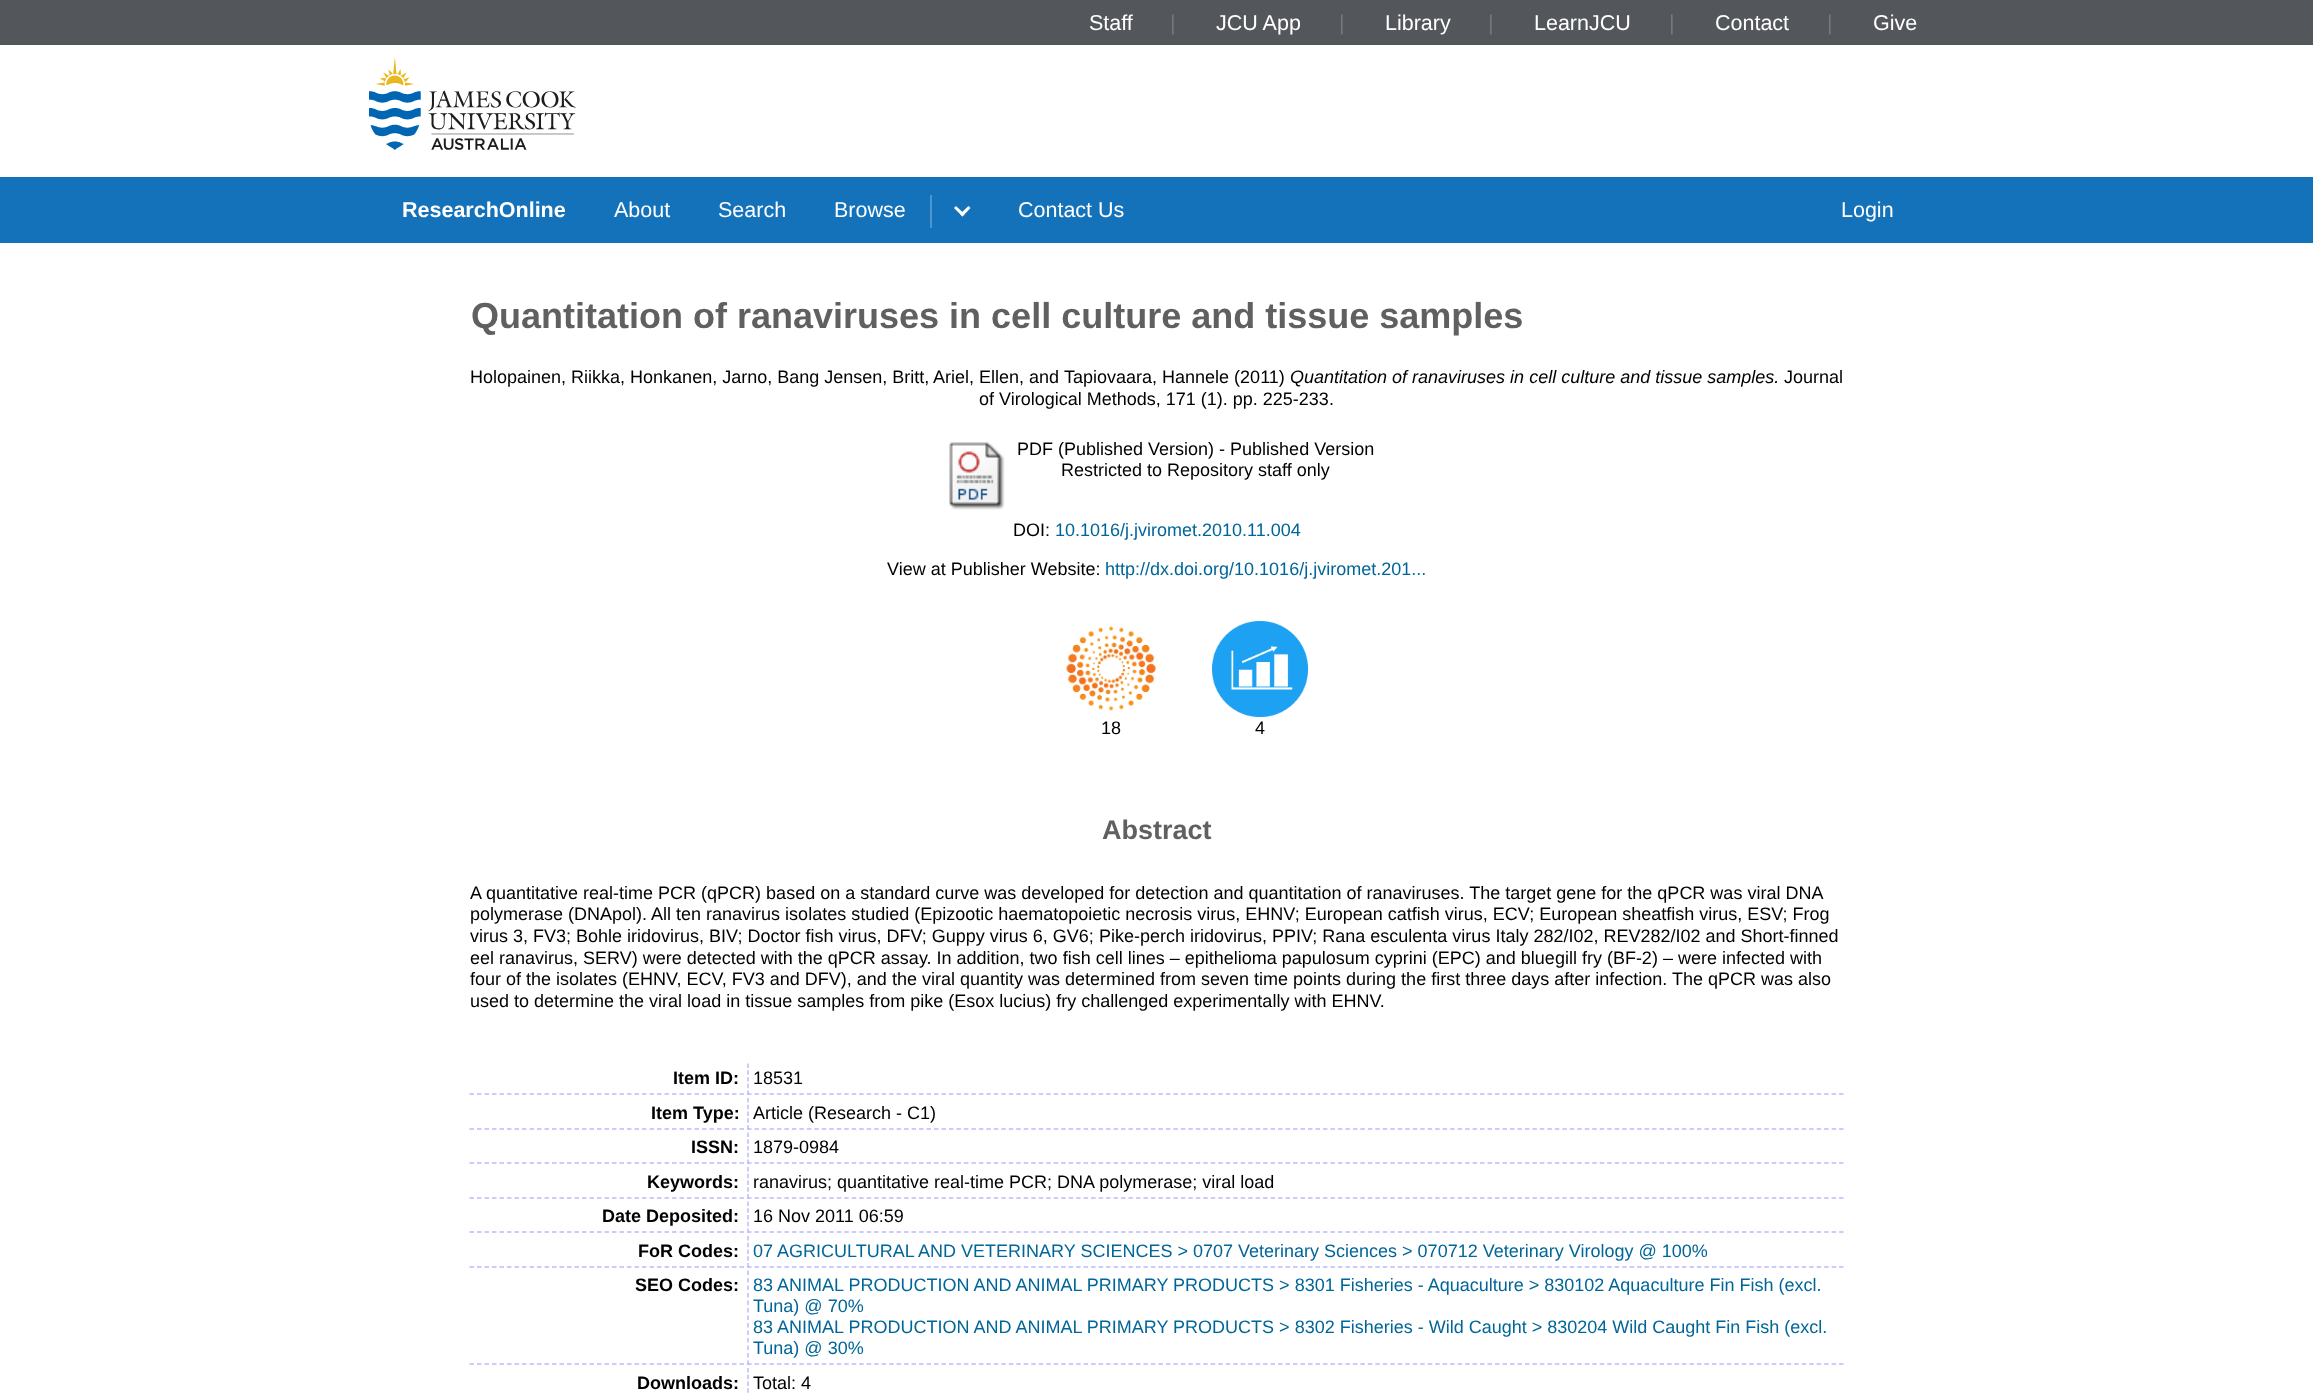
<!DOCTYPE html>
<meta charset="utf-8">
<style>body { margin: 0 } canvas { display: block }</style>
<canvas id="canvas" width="2313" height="1394"></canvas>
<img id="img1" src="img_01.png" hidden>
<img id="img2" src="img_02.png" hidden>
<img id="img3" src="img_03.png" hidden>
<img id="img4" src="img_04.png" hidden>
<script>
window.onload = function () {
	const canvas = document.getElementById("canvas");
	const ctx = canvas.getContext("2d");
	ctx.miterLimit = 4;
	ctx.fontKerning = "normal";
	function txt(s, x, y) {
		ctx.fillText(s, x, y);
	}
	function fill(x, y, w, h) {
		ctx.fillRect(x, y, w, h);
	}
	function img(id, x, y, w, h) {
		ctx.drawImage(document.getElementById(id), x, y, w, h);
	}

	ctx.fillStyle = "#FFFFFF";
	fill(0, 0, 2313, 1394);
	ctx.fillStyle = "#53565A";
	fill(0, 0, 2313, 45);
	img("img1", 369, 57, 207, 93);
	ctx.fillStyle = "#1372B9";
	fill(0, 177, 2313, 66);
	ctx.fillStyle = "#4E95CB";
	fill(930, 195, 2, 33);
	ctx.fillStyle = "#FFFFFF";
	ctx.beginPath();
	ctx.moveTo(970.5, 208);
	ctx.lineTo(962.5, 216.5);
	ctx.lineTo(960, 214);
	ctx.lineTo(968.5, 206);
	ctx.closePath();
	ctx.fill();
	ctx.beginPath();
	ctx.moveTo(964.5, 214);
	ctx.lineTo(962.5, 216.5);
	ctx.lineTo(954, 208);
	ctx.lineTo(956, 206);
	ctx.closePath();
	ctx.fill();
	img("img2", 949, 442, 56, 68);
	img("img3", 1066, 626, 90, 85);
	img("img4", 1212, 621, 96, 96);
	ctx.beginPath();
	ctx.moveTo(469.5, 1094);
	ctx.lineTo(744, 1094);
	ctx.strokeStyle = "#BBBBFF";
	ctx.lineWidth = 1.5;
	ctx.setLineDash([4.5, 3]);
	ctx.stroke();
	ctx.beginPath();
	ctx.moveTo(747, 1094);
	ctx.lineTo(1843.5, 1094);
	ctx.setLineDash([4.5, 2.98]);
	ctx.stroke();
	ctx.beginPath();
	ctx.moveTo(748, 1063.5);
	ctx.lineTo(748, 1095);
	ctx.setLineDash([4.5, 2.25]);
	ctx.stroke();
	ctx.beginPath();
	ctx.moveTo(469.5, 1129);
	ctx.lineTo(744, 1129);
	ctx.setLineDash([4.5, 3]);
	ctx.stroke();
	ctx.beginPath();
	ctx.moveTo(747, 1129);
	ctx.lineTo(1843.5, 1129);
	ctx.setLineDash([4.5, 2.98]);
	ctx.stroke();
	ctx.beginPath();
	ctx.moveTo(748, 1098);
	ctx.lineTo(748, 1129.5);
	ctx.setLineDash([4.5, 2.25]);
	ctx.stroke();
	ctx.beginPath();
	ctx.moveTo(469.5, 1163);
	ctx.lineTo(744, 1163);
	ctx.setLineDash([4.5, 3]);
	ctx.stroke();
	ctx.beginPath();
	ctx.moveTo(747, 1163);
	ctx.lineTo(1843.5, 1163);
	ctx.setLineDash([4.5, 2.98]);
	ctx.stroke();
	ctx.beginPath();
	ctx.moveTo(748, 1132.5);
	ctx.lineTo(748, 1164);
	ctx.setLineDash([4.5, 2.25]);
	ctx.stroke();
	ctx.beginPath();
	ctx.moveTo(469.5, 1198);
	ctx.lineTo(744, 1198);
	ctx.setLineDash([4.5, 3]);
	ctx.stroke();
	ctx.beginPath();
	ctx.moveTo(747, 1198);
	ctx.lineTo(1843.5, 1198);
	ctx.setLineDash([4.5, 2.98]);
	ctx.stroke();
	ctx.beginPath();
	ctx.moveTo(748, 1167);
	ctx.lineTo(748, 1198.5);
	ctx.setLineDash([4.5, 2.25]);
	ctx.stroke();
	ctx.beginPath();
	ctx.moveTo(469.5, 1232);
	ctx.lineTo(744, 1232);
	ctx.setLineDash([4.5, 3]);
	ctx.stroke();
	ctx.beginPath();
	ctx.moveTo(747, 1232);
	ctx.lineTo(1843.5, 1232);
	ctx.setLineDash([4.5, 2.98]);
	ctx.stroke();
	ctx.beginPath();
	ctx.moveTo(748, 1201.5);
	ctx.lineTo(748, 1233);
	ctx.setLineDash([4.5, 2.25]);
	ctx.stroke();
	ctx.beginPath();
	ctx.moveTo(469.5, 1267);
	ctx.lineTo(744, 1267);
	ctx.setLineDash([4.5, 3]);
	ctx.stroke();
	ctx.beginPath();
	ctx.moveTo(747, 1267);
	ctx.lineTo(1843.5, 1267);
	ctx.setLineDash([4.5, 2.98]);
	ctx.stroke();
	ctx.beginPath();
	ctx.moveTo(748, 1236);
	ctx.lineTo(748, 1267.5);
	ctx.setLineDash([4.5, 2.25]);
	ctx.stroke();
	ctx.beginPath();
	ctx.moveTo(469.5, 1364);
	ctx.lineTo(744, 1364);
	ctx.setLineDash([4.5, 3]);
	ctx.stroke();
	ctx.beginPath();
	ctx.moveTo(747, 1364);
	ctx.lineTo(1843.5, 1364);
	ctx.setLineDash([4.5, 2.98]);
	ctx.stroke();
	ctx.beginPath();
	ctx.moveTo(748, 1270.5);
	ctx.lineTo(748, 1365);
	ctx.setLineDash([4.5, 3]);
	ctx.stroke();
	ctx.beginPath();
	ctx.moveTo(748, 1368);
	ctx.lineTo(748, 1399.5);
	ctx.setLineDash([4.5, 2.25]);
	ctx.stroke();
	ctx.font = "21.5px Liberation Sans";
	txt("Staff", 1089, 30);
	ctx.fillStyle = "#75787B";
	txt("|", 1170, 30);
	ctx.fillStyle = "#FFFFFF";
	txt("JCU App", 1216, 30);
	ctx.fillStyle = "#75787B";
	txt("|", 1339, 30);
	ctx.fillStyle = "#FFFFFF";
	txt("Library", 1385, 30);
	ctx.fillStyle = "#75787B";
	txt("|", 1488, 30);
	ctx.fillStyle = "#FFFFFF";
	txt("LearnJCU", 1534, 30);
	ctx.fillStyle = "#75787B";
	txt("|", 1669, 30);
	ctx.fillStyle = "#FFFFFF";
	txt("Contact", 1715, 30);
	ctx.fillStyle = "#75787B";
	txt("|", 1827, 30);
	ctx.fillStyle = "#FFFFFF";
	txt("Give", 1873, 30);
	ctx.font = "bold 21.5px Liberation Sans";
	txt("ResearchOnline", 402, 217);
	ctx.font = "21.5px Liberation Sans";
	txt("About", 614, 217);
	txt("Search", 718, 217);
	txt("Browse", 834, 217);
	txt("Contact Us", 1018, 217);
	txt("Login", 1841, 217);
	ctx.font = "bold 36px Liberation Sans";
	ctx.fillStyle = "#606060";
	txt("Quantitation of ranaviruses in cell culture and tissue samples", 471, 328);
	ctx.font = "18px Liberation Sans";
	ctx.fillStyle = "#000000";
	txt("Holopainen, Riikka, Honkanen, Jarno, Bang Jensen, Britt,", 470, 383);
	txt("Ariel, Ellen, and", 933, 383);
	txt("Tapiovaara, Hannele (2011)", 1064, 383);
	ctx.font = "italic 18px Liberation Sans";
	txt("Quantitation of ranaviruses in cell culture and tissue samples.", 1290, 383);
	ctx.font = "18px Liberation Sans";
	txt("Journal", 1784, 383);
	txt("of Virological Methods, 171 (1). pp. 225-233.", 979, 405);
	txt("PDF (Published Version) - Published Version", 1017, 455);
	txt("Restricted to Repository staff only", 1061, 476);
	txt("DOI:", 1013, 536);
	ctx.fillStyle = "#006699";
	txt("10.1016/j.jviromet.2010.11.004", 1055, 536);
	ctx.fillStyle = "#000000";
	txt("View at Publisher Website:", 887, 575);
	ctx.fillStyle = "#006699";
	txt("http://dx.doi.org/10.1016/j.jviromet.201...", 1105, 575);
	ctx.fillStyle = "#000000";
	txt("18", 1101, 734);
	txt("4", 1255, 734);
	ctx.font = "bold 27px Liberation Sans";
	ctx.fillStyle = "#606060";
	txt("Abstract", 1102, 839);
	ctx.font = "18px Liberation Sans";
	ctx.fillStyle = "#000000";
	txt("A quantitative real-time PCR (qPCR) based on a standard curve was developed for detection and quantitation of ranaviruses. The target gene for the qPCR was viral DNA", 470, 899);
	txt("polymerase (DNApol). All ten ranavirus isolates studied (Epizootic haematopoietic necrosis virus, EHNV; European catfish virus, ECV; European sheatfish virus, ESV; Frog", 470, 920);
	txt("virus 3, FV3; Bohle iridovirus, BIV; Doctor fish virus, DFV; Guppy virus 6, GV6; Pike-perch iridovirus, PPIV; Rana esculenta virus Italy 282/I02, REV282/I02 and Short-finned", 470, 942);
	txt("eel ranavirus, SERV) were detected with the qPCR assay. In addition, two fish cell lines – epithelioma papulosum cyprini (EPC) and bluegill fry (BF-2) – were infected with", 470, 964);
	txt("four of the isolates (EHNV, ECV, FV3 and DFV), and the viral quantity was determined from seven time points during the first three days after infection. The qPCR was also", 470, 985);
	txt("used to determine the viral load in tissue samples from pike (Esox lucius) fry challenged experimentally with EHNV.", 470, 1007);
	ctx.font = "bold 18px Liberation Sans";
	txt("Item ID:", 673, 1084);
	ctx.font = "18px Liberation Sans";
	txt("18531", 753, 1084);
	ctx.font = "bold 18px Liberation Sans";
	txt("Item Type:", 651, 1119);
	ctx.font = "18px Liberation Sans";
	txt("Article (Research - C1)", 753, 1119);
	ctx.font = "bold 18px Liberation Sans";
	txt("ISSN:", 691, 1153);
	ctx.font = "18px Liberation Sans";
	txt("1879-0984", 753, 1153);
	ctx.font = "bold 18px Liberation Sans";
	txt("Keywords:", 647, 1188);
	ctx.font = "18px Liberation Sans";
	txt("ranavirus; quantitative real-time PCR; DNA polymerase; viral load", 753, 1188);
	ctx.font = "bold 18px Liberation Sans";
	txt("Date Deposited:", 602, 1222);
	ctx.font = "18px Liberation Sans";
	txt("16 Nov 2011 06:59", 753, 1222);
	ctx.font = "bold 18px Liberation Sans";
	txt("FoR Codes:", 638, 1257);
	ctx.font = "18px Liberation Sans";
	ctx.fillStyle = "#006699";
	txt("07 AGRICULTURAL AND VETERINARY SCIENCES > 0707 Veterinary Sciences > 070712 Veterinary Virology @ 100%", 753, 1257);
	ctx.font = "bold 18px Liberation Sans";
	ctx.fillStyle = "#000000";
	txt("SEO Codes:", 635, 1291);
	ctx.font = "18px Liberation Sans";
	ctx.fillStyle = "#006699";
	txt("83 ANIMAL PRODUCTION AND ANIMAL PRIMARY PRODUCTS > 8301 Fisheries - Aquaculture > 830102 Aquaculture Fin Fish (excl.", 753, 1291);
	txt("Tuna) @ 70%", 753, 1312);
	txt("83 ANIMAL PRODUCTION AND ANIMAL PRIMARY PRODUCTS > 8302 Fisheries - Wild Caught > 830204 Wild Caught Fin Fish (excl.", 753, 1333);
	txt("Tuna) @ 30%", 753, 1354);
	ctx.font = "bold 18px Liberation Sans";
	ctx.fillStyle = "#000000";
	txt("Downloads:", 637, 1389);
	ctx.font = "18px Liberation Sans";
	txt("Total: 4", 753, 1389);
};
</script>
